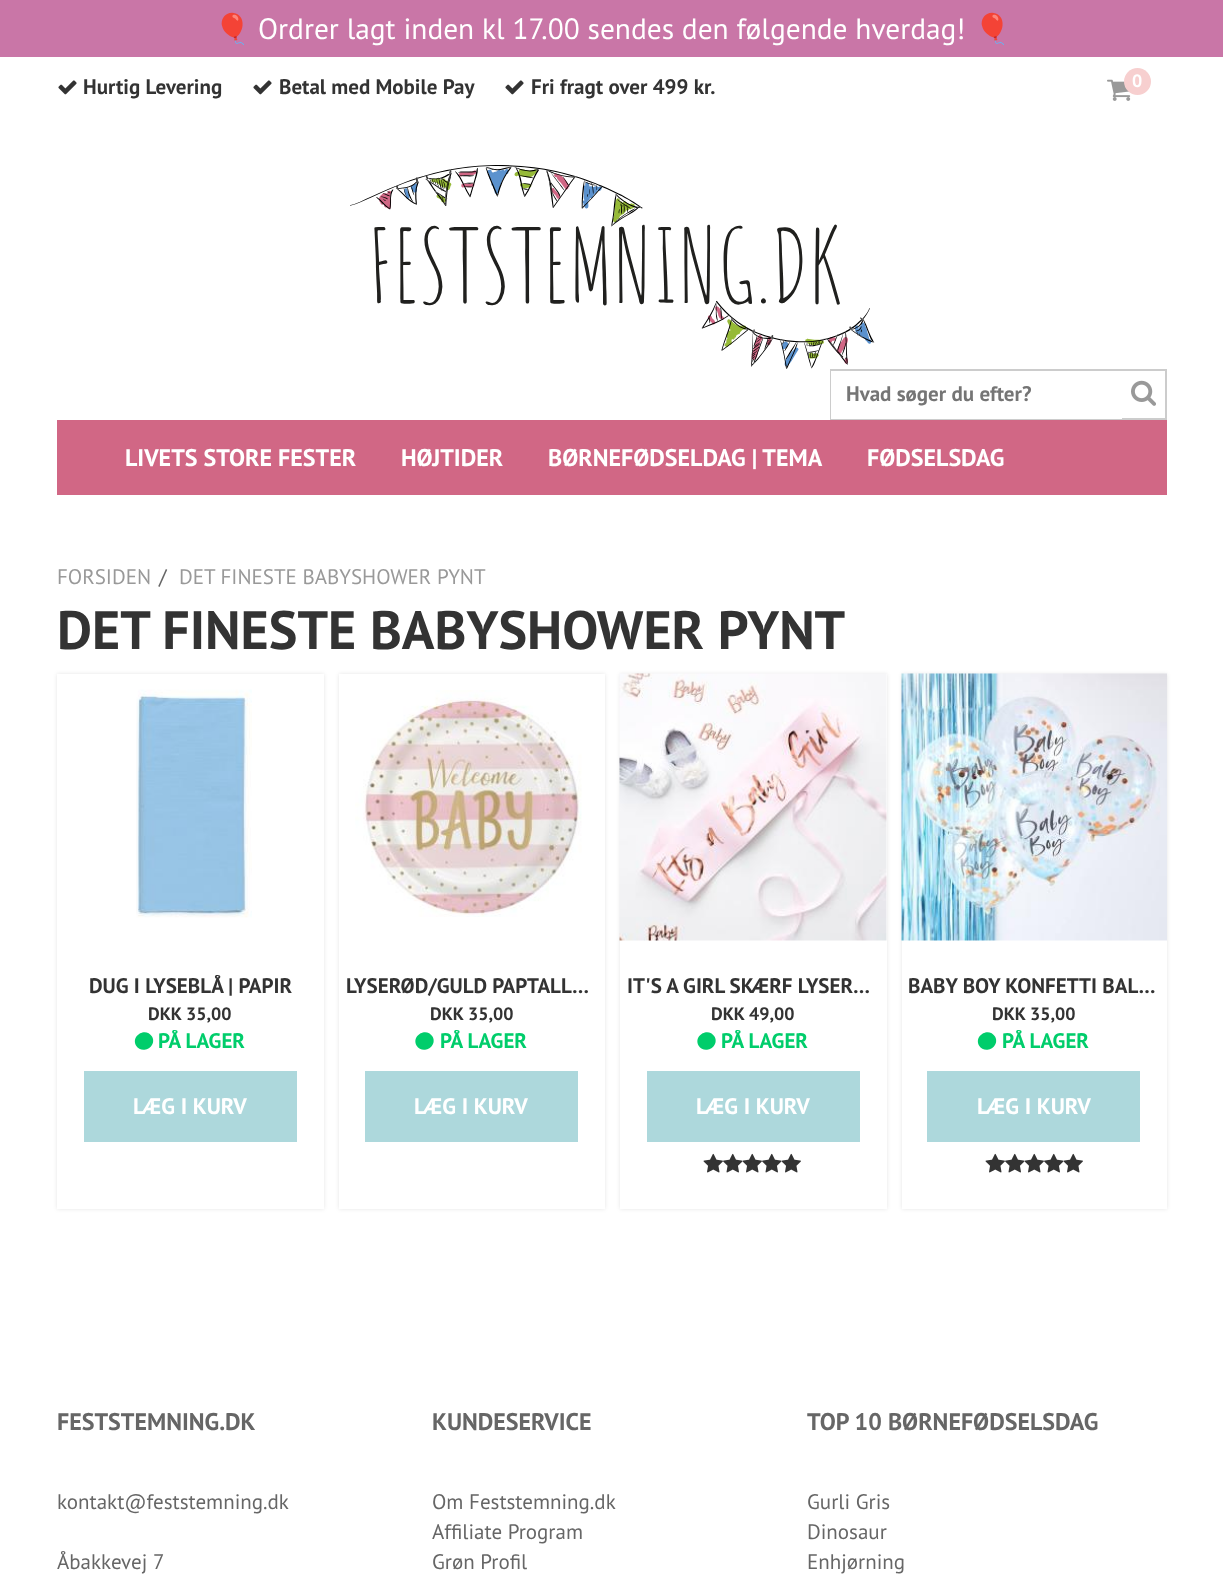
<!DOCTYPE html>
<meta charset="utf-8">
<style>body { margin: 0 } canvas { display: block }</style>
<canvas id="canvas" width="1223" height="1589"></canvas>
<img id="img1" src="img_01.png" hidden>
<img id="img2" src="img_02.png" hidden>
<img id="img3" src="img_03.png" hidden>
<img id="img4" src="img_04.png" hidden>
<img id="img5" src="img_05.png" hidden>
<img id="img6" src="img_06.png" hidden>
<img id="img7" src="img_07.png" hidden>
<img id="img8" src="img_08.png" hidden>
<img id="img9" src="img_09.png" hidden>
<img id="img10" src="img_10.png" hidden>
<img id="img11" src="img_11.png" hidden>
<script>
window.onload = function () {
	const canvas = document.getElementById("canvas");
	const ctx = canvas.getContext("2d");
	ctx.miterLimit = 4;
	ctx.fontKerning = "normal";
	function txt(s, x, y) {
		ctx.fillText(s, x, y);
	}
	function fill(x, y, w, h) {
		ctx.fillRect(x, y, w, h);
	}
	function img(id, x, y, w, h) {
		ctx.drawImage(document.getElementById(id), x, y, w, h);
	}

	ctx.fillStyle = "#FFFFFF";
	fill(0, 0, 1223, 1589);
	ctx.fillStyle = "#C976A7";
	fill(0, 0, 1223, 57);
	img("img1", 58, 80, 19, 15);
	img("img1", 253, 80, 19, 15);
	img("img1", 505, 80, 19, 15);
	img("img2", 1107, 79, 24, 22);
	ctx.fillStyle = "#F7CFCF";
	ctx.beginPath();
	ctx.arc(1137.5, 81.5, 13.5, 0, Math.PI * 2);
	ctx.fill();
	img("img3", 350, 165, 525, 204);
	ctx.strokeStyle = "#CCCCCC";
	ctx.lineWidth = 2;
	ctx.strokeRect(831, 370, 335, 49);
	ctx.fillStyle = "#FFFFFF";
	fill(831, 371, 291, 48);
	img("img4", 1131, 380, 25, 26);
	ctx.fillStyle = "#D16785";
	fill(57, 420, 1110, 75);
	ctx.save();
	ctx.beginPath();
	ctx.moveTo(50, 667);
	ctx.lineTo(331, 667);
	ctx.lineTo(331, 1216);
	ctx.lineTo(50, 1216);
	ctx.closePath();
	ctx.moveTo(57, 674);
	ctx.lineTo(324, 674);
	ctx.lineTo(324, 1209);
	ctx.lineTo(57, 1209);
	ctx.closePath();
	ctx.clip("evenodd");
	ctx.fillStyle = "rgba(0, 0, 0, 0.1)";
	ctx.filter = "blur(2px)";
	ctx.beginPath();
	ctx.rect(57, 674, 267, 535);
	ctx.fill();
	ctx.filter = "none";
	ctx.restore();
	img("img5", 136, 689, 116, 229);
	ctx.fillStyle = "#00CD6B";
	ctx.beginPath();
	ctx.moveTo(152, 1036.5);
	ctx.bezierCurveTo(157.5, 1046.5, 142, 1055.5, 136, 1045.5);
	ctx.bezierCurveTo(130.5, 1035.5, 146, 1026.5, 152, 1036.5);
	ctx.closePath();
	ctx.fill();
	ctx.fillStyle = "#ADD8DC";
	fill(84, 1071, 213, 71);
	ctx.fillStyle = "rgba(0, 0, 0, 0.1)";
	ctx.filter = "blur(2px)";
	ctx.beginPath();
	ctx.rect(339, 674, 266, 535);
	ctx.fill();
	ctx.filter = "none";
	ctx.fillStyle = "#FFFFFF";
	fill(339, 674, 266, 535);
	img("img6", 355, 690, 227, 227);
	ctx.fillStyle = "#00CD6B";
	ctx.beginPath();
	ctx.moveTo(432.5, 1036.5);
	ctx.bezierCurveTo(438, 1046.5, 422.5, 1055.5, 416.5, 1045.5);
	ctx.bezierCurveTo(411, 1035.5, 426.5, 1026.5, 432.5, 1036.5);
	ctx.closePath();
	ctx.fill();
	ctx.fillStyle = "#ADD8DC";
	fill(365, 1071, 213, 71);
	ctx.fillStyle = "rgba(0, 0, 0, 0.1)";
	ctx.filter = "blur(2px)";
	ctx.beginPath();
	ctx.rect(620, 674, 267, 535);
	ctx.fill();
	ctx.filter = "none";
	ctx.fillStyle = "#FFFFFF";
	fill(620, 674, 267, 535);
	img("img7", 619, 673, 268, 268);
	ctx.fillStyle = "#00CD6B";
	ctx.beginPath();
	ctx.moveTo(714.5, 1036.5);
	ctx.bezierCurveTo(720, 1046.5, 704.5, 1055.5, 698.5, 1045.5);
	ctx.bezierCurveTo(693, 1035.5, 708.5, 1026.5, 714.5, 1036.5);
	ctx.closePath();
	ctx.fill();
	ctx.fillStyle = "#ADD8DC";
	fill(647, 1071, 213, 71);
	img("img8", 703, 1153, 20, 20);
	img("img9", 723, 1153, 20, 20);
	img("img10", 742, 1153, 20, 20);
	img("img9", 762, 1153, 20, 20);
	img("img10", 781, 1153, 20, 20);
	ctx.save();
	ctx.beginPath();
	ctx.moveTo(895, 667);
	ctx.lineTo(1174, 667);
	ctx.lineTo(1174, 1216);
	ctx.lineTo(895, 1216);
	ctx.closePath();
	ctx.moveTo(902, 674);
	ctx.lineTo(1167, 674);
	ctx.lineTo(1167, 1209);
	ctx.lineTo(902, 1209);
	ctx.closePath();
	ctx.clip("evenodd");
	ctx.fillStyle = "rgba(0, 0, 0, 0.1)";
	ctx.filter = "blur(2px)";
	ctx.beginPath();
	ctx.rect(902, 674, 265, 535);
	ctx.fill();
	ctx.filter = "none";
	ctx.restore();
	img("img11", 901, 673, 266, 268);
	ctx.fillStyle = "#00CD6B";
	ctx.beginPath();
	ctx.moveTo(995, 1036.5);
	ctx.bezierCurveTo(1000.5, 1046.5, 985, 1055.5, 979, 1045.5);
	ctx.bezierCurveTo(973.5, 1035.5, 989, 1026.5, 995, 1036.5);
	ctx.closePath();
	ctx.fill();
	ctx.fillStyle = "#ADD8DC";
	fill(927, 1071, 213, 71);
	img("img8", 985, 1153, 20, 20);
	img("img9", 1005, 1153, 20, 20);
	img("img10", 1024, 1153, 20, 20);
	img("img9", 1044, 1153, 20, 20);
	img("img10", 1063, 1153, 20, 20);
	ctx.font = "29.4px Noto Color Emoji";
	ctx.fillStyle = "#FFFFFF";
	txt("🎈", 214, 39);
	ctx.font = "29.4px PT Sans";
	txt("Ordrer lagt inden kl 17.00 sendes den følgende hverdag!", 258, 39);
	ctx.font = "29.4px Noto Color Emoji";
	txt("🎈", 974, 39);
	ctx.font = "bold 21px PT Sans";
	ctx.fillStyle = "#333333";
	txt("Hurtig Levering", 83, 94);
	txt("Betal med Mobile Pay", 279, 94);
	txt("Fri fragt over 499 kr.", 531, 94);
	ctx.font = "bold 18px PT Sans";
	ctx.fillStyle = "#FFFFFF";
	txt("0", 1132, 87);
	ctx.font = "bold 21px PT Sans";
	ctx.fillStyle = "#757575";
	txt("Hvad søger du efter?", 846, 401);
	ctx.font = "bold 24px PT Sans";
	ctx.fillStyle = "#FFFFFF";
	txt("LIVETS STORE FESTER", 125, 466);
	txt("HØJTIDER", 401, 466);
	txt("BØRNEFØDSELDAG | TEMA", 548, 466);
	txt("FØDSELSDAG", 867, 466);
	ctx.font = "21px PT Sans";
	ctx.fillStyle = "#999999";
	txt("FORSIDEN", 57, 584);
	ctx.fillStyle = "#666666";
	txt("/", 159, 584);
	ctx.fillStyle = "#999999";
	txt("DET FINESTE BABYSHOWER PYNT", 179, 584);
	ctx.font = "bold 54px PT Sans";
	ctx.fillStyle = "#333333";
	txt("DET FINESTE BABYSHOWER PYNT", 57, 649);
	ctx.font = "bold 21px PT Sans";
	txt("DUG I LYSEBLÅ | PAPIR", 89, 993);
	ctx.font = "bold 18px PT Sans";
	txt("DKK 35,00", 148, 1020);
	ctx.font = "bold 21px PT Sans";
	ctx.fillStyle = "#00CD6B";
	txt("PÅ LAGER", 158, 1048);
	ctx.font = "bold 22.5px PT Sans";
	ctx.fillStyle = "#FFFFFF";
	txt("LÆG I KURV", 133, 1114);
	ctx.font = "bold 21px PT Sans";
	ctx.fillStyle = "#333333";
	txt("LYSERØD/GULD PAPTALL…", 346, 993);
	ctx.font = "bold 18px PT Sans";
	txt("DKK 35,00", 430, 1020);
	ctx.font = "bold 21px PT Sans";
	ctx.fillStyle = "#00CD6B";
	txt("PÅ LAGER", 440, 1048);
	ctx.font = "bold 22.5px PT Sans";
	ctx.fillStyle = "#FFFFFF";
	txt("LÆG I KURV", 414, 1114);
	ctx.font = "bold 21px PT Sans";
	ctx.fillStyle = "#333333";
	txt("IT'S A GIRL SKÆRF LYSER…", 627, 993);
	ctx.font = "bold 18px PT Sans";
	txt("DKK 49,00", 711, 1020);
	ctx.font = "bold 21px PT Sans";
	ctx.fillStyle = "#00CD6B";
	txt("PÅ LAGER", 721, 1048);
	ctx.font = "bold 22.5px PT Sans";
	ctx.fillStyle = "#FFFFFF";
	txt("LÆG I KURV", 696, 1114);
	ctx.font = "bold 21px PT Sans";
	ctx.fillStyle = "#333333";
	txt("BABY BOY KONFETTI BAL…", 908, 993);
	ctx.font = "bold 18px PT Sans";
	txt("DKK 35,00", 992, 1020);
	ctx.font = "bold 21px PT Sans";
	ctx.fillStyle = "#00CD6B";
	txt("PÅ LAGER", 1002, 1048);
	ctx.font = "bold 22.5px PT Sans";
	ctx.fillStyle = "#FFFFFF";
	txt("LÆG I KURV", 977, 1114);
	ctx.font = "bold 24px PT Sans";
	ctx.fillStyle = "#666666";
	txt("FESTSTEMNING.DK", 57, 1430);
	ctx.font = "21px PT Sans";
	txt("kontakt@feststemning.dk", 57, 1509);
	txt("Åbakkevej 7", 57, 1569);
	ctx.font = "bold 24px PT Sans";
	txt("KUNDESERVICE", 432, 1430);
	ctx.font = "21px PT Sans";
	txt("Om Feststemning.dk", 432, 1509);
	txt("Affiliate Program", 432, 1539);
	txt("Grøn Profil", 432, 1569);
	ctx.font = "bold 24px PT Sans";
	txt("TOP 10 BØRNEFØDSELSDAG", 807, 1430);
	ctx.font = "21px PT Sans";
	txt("Gurli Gris", 807, 1509);
	txt("Dinosaur", 807, 1539);
	txt("Enhjørning", 807, 1569);
};
</script>
